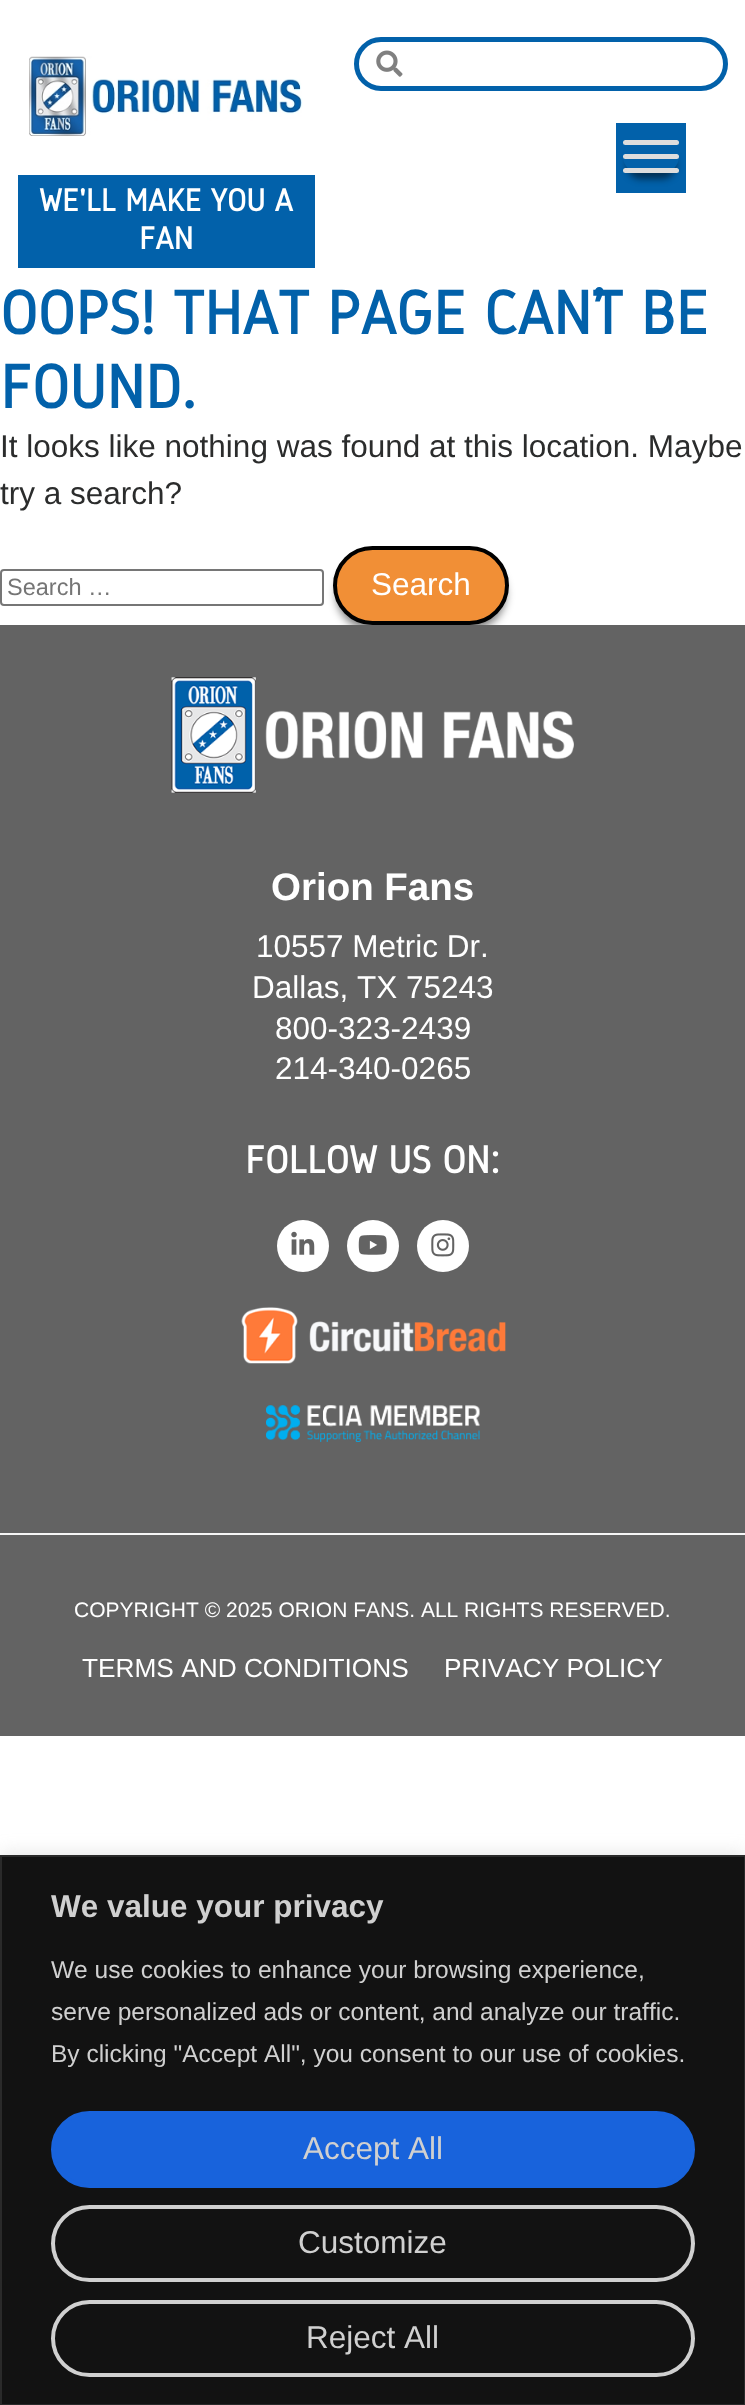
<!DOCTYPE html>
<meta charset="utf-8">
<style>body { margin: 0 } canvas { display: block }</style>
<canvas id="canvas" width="745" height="2405"></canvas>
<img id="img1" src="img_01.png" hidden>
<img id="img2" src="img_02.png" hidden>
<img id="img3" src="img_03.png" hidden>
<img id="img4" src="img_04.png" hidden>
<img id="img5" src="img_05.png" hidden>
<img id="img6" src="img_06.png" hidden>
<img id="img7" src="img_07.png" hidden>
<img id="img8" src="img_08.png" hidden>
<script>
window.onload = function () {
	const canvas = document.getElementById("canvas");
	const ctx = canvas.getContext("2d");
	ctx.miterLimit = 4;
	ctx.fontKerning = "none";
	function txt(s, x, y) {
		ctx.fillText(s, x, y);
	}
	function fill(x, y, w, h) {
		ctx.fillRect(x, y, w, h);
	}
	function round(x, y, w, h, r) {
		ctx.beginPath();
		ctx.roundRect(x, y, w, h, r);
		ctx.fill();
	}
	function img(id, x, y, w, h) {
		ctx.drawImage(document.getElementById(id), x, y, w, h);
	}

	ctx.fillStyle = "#FFFFFF";
	fill(0, 0, 745, 2405);
	ctx.beginPath();
	ctx.roundRect(356.5, 39.5, 369, 49, 24.5);
	ctx.strokeStyle = "#0261AA";
	ctx.lineWidth = 5;
	ctx.stroke();
	img("img1", 376, 50, 27, 27);
	ctx.fillStyle = "#0261AA";
	fill(616, 123, 70, 70);
	ctx.save();
	ctx.beginPath();
	ctx.moveTo(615, 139);
	ctx.lineTo(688, 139);
	ctx.lineTo(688, 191);
	ctx.lineTo(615, 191);
	ctx.closePath();
	ctx.moveTo(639.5, 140);
	ctx.lineTo(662.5, 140);
	ctx.bezierCurveTo(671.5, 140, 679, 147.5, 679, 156.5);
	ctx.bezierCurveTo(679, 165.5, 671.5, 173, 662.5, 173);
	ctx.lineTo(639.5, 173);
	ctx.bezierCurveTo(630.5, 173, 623, 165.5, 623, 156.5);
	ctx.bezierCurveTo(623, 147.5, 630.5, 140, 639.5, 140);
	ctx.closePath();
	ctx.clip("evenodd");
	ctx.fillStyle = "rgba(0, 0, 0, 0.5)";
	ctx.filter = "blur(3.5px)";
	ctx.beginPath();
	ctx.roundRect(627, 151, 49, 28, 14);
	ctx.fill();
	ctx.filter = "none";
	ctx.restore();
	ctx.fillStyle = "#DDDDDD";
	round(623, 140, 56, 5, 2.5);
	round(623, 154, 56, 5, 2.5);
	round(623, 168, 56, 5, 2.5);
	img("img2", 29, 56, 274, 80);
	ctx.fillStyle = "#0261AA";
	fill(18, 175, 297, 93);
	ctx.beginPath();
	ctx.roundRect(1, 570, 322, 35, 3);
	ctx.strokeStyle = "#767676";
	ctx.lineWidth = 2;
	ctx.stroke();
	ctx.fillStyle = "rgba(0, 0, 0, 0.5)";
	ctx.filter = "blur(4.5px)";
	ctx.beginPath();
	ctx.roundRect(336, 558, 170, 72, 36);
	ctx.fill();
	ctx.filter = "none";
	ctx.fillStyle = "#F18F36";
	ctx.beginPath();
	ctx.roundRect(335, 548, 172, 75, 37.5);
	ctx.fill();
	ctx.strokeStyle = "#000000";
	ctx.lineWidth = 4;
	ctx.stroke();
	ctx.fillStyle = "#636363";
	fill(0, 625, 745, 908);
	img("img3", 171, 677, 403, 116);
	ctx.fillStyle = "#FFFFFF";
	ctx.beginPath();
	ctx.arc(303, 1246, 26, 0, Math.PI * 2);
	ctx.fill();
	img("img4", 291, 1231, 24, 24);
	ctx.beginPath();
	ctx.arc(373, 1246, 26, 0, Math.PI * 2);
	ctx.fill();
	img("img5", 358, 1235, 29, 20);
	ctx.beginPath();
	ctx.arc(443, 1246, 26, 0, Math.PI * 2);
	ctx.fill();
	img("img6", 431, 1233, 24, 24);
	img("img7", 241, 1307, 265, 57);
	img("img8", 266, 1405, 214, 37);
	ctx.fillStyle = "#636363";
	fill(0, 1535, 745, 201);
	ctx.fillStyle = "#F6F6F6";
	fill(0, 1533, 745, 2);
	ctx.fillStyle = "rgba(172, 171, 171, 0.3)";
	ctx.filter = "blur(9px)";
	ctx.beginPath();
	ctx.rect(0, 1853, 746, 552);
	ctx.fill();
	ctx.filter = "none";
	ctx.fillStyle = "#121212";
	ctx.beginPath();
	ctx.rect(1, 1856, 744, 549);
	ctx.fill();
	ctx.strokeStyle = "#2A2A2A";
	ctx.lineWidth = 2;
	ctx.stroke();
	ctx.fillStyle = "#1863DC";
	ctx.beginPath();
	ctx.roundRect(53, 2113, 640, 73, 36.5);
	ctx.fill();
	ctx.strokeStyle = "#1863DC";
	ctx.lineWidth = 4;
	ctx.stroke();
	ctx.beginPath();
	ctx.roundRect(53, 2207, 640, 73, 36.5);
	ctx.strokeStyle = "#D0D0D0";
	ctx.stroke();
	ctx.beginPath();
	ctx.roundRect(53, 2302, 640, 73, 36.5);
	ctx.stroke();
	ctx.font = "bold 31.5px Gidole";
	ctx.fillStyle = "#FFFFFF";
	txt("WE'LL MAKE YOU A", 39, 211);
	txt("FAN", 139, 249);
	ctx.font = "bold 61.25px Gidole";
	ctx.fillStyle = "#0261AA";
	txt("OOPS! THAT PAGE", 0, 334);
	txt("CAN’T BE", 484, 334);
	txt("FOUND.", 0, 408);
	ctx.font = "31.5px Liberation Sans";
	ctx.fillStyle = "#2B2C2C";
	txt("It looks like nothing was found at this location. Maybe", 0, 457);
	txt("try a search?", 0, 504);
	ctx.font = "23.5px Liberation Sans";
	ctx.fillStyle = "#757575";
	txt("Search …", 7, 595);
	ctx.font = "31.5px Liberation Sans";
	ctx.fillStyle = "#FFFFFF";
	txt("Search", 371, 595);
	ctx.font = "bold 38.5px Liberation Sans";
	txt("Orion Fans", 271, 900);
	ctx.font = "31.5px Liberation Sans";
	txt("10557 Metric Dr.", 256, 957);
	txt("Dallas, TX 75243", 252, 998);
	txt("800-323-2439", 275, 1039);
	txt("214-340-0265", 275, 1079);
	ctx.font = "bold 38.5px Gidole";
	txt("FOLLOW US ON:", 245, 1173);
	ctx.font = "21px Liberation Sans";
	txt("COPYRIGHT © 2025 ORION FANS. ALL RIGHTS RESERVED.", 74, 1617);
	ctx.font = "26.25px Liberation Sans";
	txt("TERMS AND CONDITIONS", 82, 1677);
	txt("PRIVACY POLICY", 444, 1677);
	ctx.font = "bold 31.5px Liberation Sans";
	ctx.fillStyle = "#D0D0D0";
	txt("We value your privacy", 51, 1917);
	ctx.font = "24.5px Liberation Sans";
	txt("We use cookies to enhance your browsing experience,", 51, 1978);
	txt("serve personalized ads or content, and analyze our traffic.", 51, 2020);
	txt("By clicking \"Accept All\", you consent to our use of cookies.", 51, 2062);
	ctx.font = "31.5px Liberation Sans";
	txt("Accept All", 303, 2159);
	txt("Customize", 298, 2253);
	txt("Reject All", 306, 2348);
};
</script>
